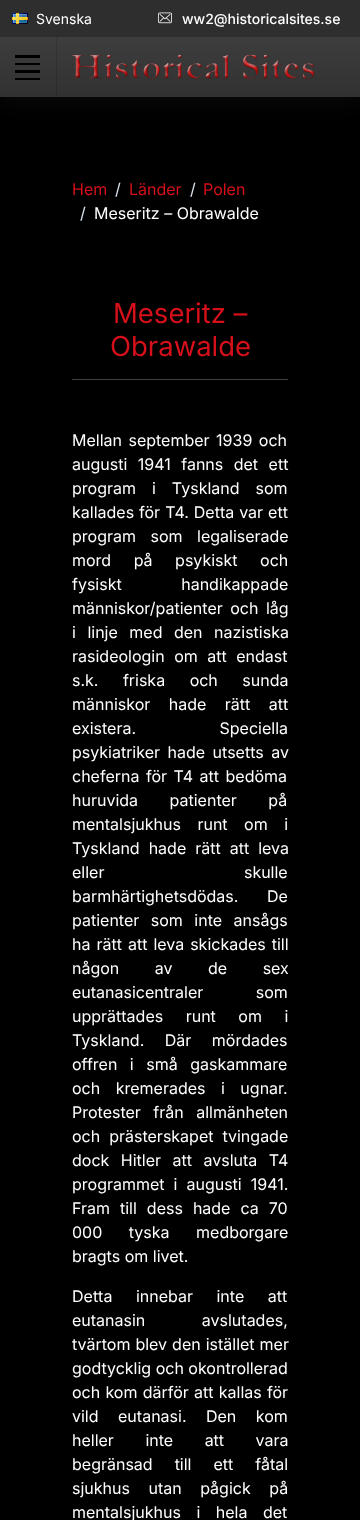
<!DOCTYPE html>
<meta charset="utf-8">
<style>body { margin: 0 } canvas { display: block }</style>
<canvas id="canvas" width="360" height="1520"></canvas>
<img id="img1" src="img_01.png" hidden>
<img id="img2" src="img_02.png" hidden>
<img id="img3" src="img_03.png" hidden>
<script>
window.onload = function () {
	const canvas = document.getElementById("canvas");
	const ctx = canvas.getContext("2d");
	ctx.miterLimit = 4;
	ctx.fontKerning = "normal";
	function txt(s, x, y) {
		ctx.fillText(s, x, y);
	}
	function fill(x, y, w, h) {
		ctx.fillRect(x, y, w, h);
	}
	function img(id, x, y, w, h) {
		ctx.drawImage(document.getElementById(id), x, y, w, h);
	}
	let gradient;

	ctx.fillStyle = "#000000";
	fill(0, 0, 360, 1520);
	ctx.fillStyle = "rgba(140, 152, 164, 0.1)";
	ctx.filter = "blur(12.5px)";
	ctx.beginPath();
	ctx.rect(0, 0, 360, 97);
	ctx.fill();
	ctx.filter = "none";
	gradient = ctx.createLinearGradient(180, 0, 180, 97);
	gradient.addColorStop(0, "#454545");
	gradient.addColorStop(1, "#313131");
	ctx.fillStyle = gradient;
	fill(0, 37, 360, 60);
	ctx.fillStyle = "#2E2E2E";
	fill(0, 0, 360, 37);
	img("img1", 12, 13, 16, 11);
	img("img2", 158, 12, 14, 12);
	ctx.fillStyle = "rgba(0, 0, 0, 0.15)";
	ctx.beginPath();
	ctx.moveTo(57, 37);
	ctx.lineTo(57, 97);
	ctx.lineTo(56, 96);
	ctx.lineTo(56, 38);
	ctx.closePath();
	ctx.fill();
	ctx.fillStyle = "#000000";
	fill(15, 55, 25, 3);
	fill(15, 63, 25, 2);
	fill(15, 70, 25, 3);
	fill(15, 78, 25, 2);
	img("img3", 72, 54, 243, 25);
	ctx.fillStyle = "#404040";
	fill(72, 379, 216, 1);
	ctx.font = "14px Inter";
	ctx.fillStyle = "#FFFFFF";
	txt("Svenska", 36, 24);
	ctx.font = "500 14px Inter";
	txt("ww2@historicalsites.se", 182, 24);
	ctx.font = "16px Inter";
	ctx.fillStyle = "#D6101A";
	txt("Hem", 72, 195);
	ctx.fillStyle = "#D9E2EF";
	txt("/", 115, 195);
	ctx.fillStyle = "#D6101A";
	txt("Länder", 129, 195);
	ctx.fillStyle = "#D9E2EF";
	txt("/", 190, 195);
	ctx.fillStyle = "#D6101A";
	txt("Polen", 203, 195);
	ctx.fillStyle = "#D9E2EF";
	txt("/", 80, 219);
	ctx.fillStyle = "#FFFFFF";
	txt("Meseritz – Obrawalde", 94, 219);
	ctx.font = "27.5px Inter";
	ctx.fillStyle = "#D6101A";
	txt("Meseritz –", 113, 323);
	txt("Obrawalde", 110, 356);
	ctx.wordSpacing = "2px";
	ctx.font = "16px Inter";
	ctx.fillStyle = "#FFFFFF";
	txt("Mellan september 1939 och", 72, 446);
	ctx.wordSpacing = "6px";
	txt("augusti 1941 fanns det ett", 72, 470);
	ctx.wordSpacing = "11.5px";
	txt("program i Tyskland som", 72, 494);
	ctx.wordSpacing = "0.5px";
	txt("kallades för T4. Detta var ett", 72, 518);
	ctx.wordSpacing = "10px";
	txt("program som legaliserade", 72, 542);
	ctx.wordSpacing = "18px";
	txt("mord på psykiskt och", 72, 566);
	ctx.wordSpacing = "55px";
	txt("fysiskt handikappade", 72, 590);
	ctx.wordSpacing = "3px";
	txt("människor/patienter och låg", 72, 614);
	ctx.wordSpacing = "7px";
	txt("i linje med den nazistiska", 72, 638);
	ctx.wordSpacing = "5px";
	txt("rasideologin om att endast", 72, 662);
	ctx.wordSpacing = "20px";
	txt("s.k. friska och sunda", 72, 686);
	ctx.wordSpacing = "14px";
	txt("människor hade rätt att", 72, 710);
	ctx.wordSpacing = "79px";
	txt("existera. Speciella", 72, 734);
	ctx.wordSpacing = "3px";
	txt("psykiatriker hade utsetts av", 72, 758);
	ctx.wordSpacing = "2px";
	txt("cheferna för T4 att bedöma", 72, 782);
	ctx.wordSpacing = "27px";
	txt("huruvida patienter på", 72, 806);
	ctx.wordSpacing = "12px";
	txt("mentalsjukhus runt om i", 72, 830);
	ctx.wordSpacing = "4.5px";
	txt("Tyskland hade rätt att leva", 72, 854);
	ctx.wordSpacing = "135px";
	txt("eller skulle", 72, 878);
	ctx.wordSpacing = "24px";
	txt("barmhärtighetsdödas. De", 72, 902);
	ctx.wordSpacing = "7px";
	txt("patienter som inte ansågs", 72, 926);
	ctx.wordSpacing = "1.5px";
	txt("ha rätt att leva skickades till", 72, 950);
	ctx.wordSpacing = "31px";
	txt("någon av de sex", 72, 974);
	ctx.wordSpacing = "48px";
	txt("eutanasicentraler som", 72, 998);
	ctx.wordSpacing = "18px";
	txt("upprättades runt om i", 72, 1022);
	ctx.wordSpacing = "16px";
	txt("Tyskland. Där mördades", 72, 1046);
	ctx.wordSpacing = "8px";
	txt("offren i små gaskammare", 72, 1070);
	ctx.wordSpacing = "11px";
	txt("och kremerades i ugnar.", 72, 1094);
	ctx.wordSpacing = "8px";
	txt("Protester från allmänheten", 72, 1118);
	ctx.wordSpacing = "4.5px";
	txt("och prästerskapet tvingade", 72, 1142);
	ctx.wordSpacing = "7px";
	txt("dock Hitler att avsluta T4", 72, 1166);
	ctx.wordSpacing = "4.5px";
	txt("programmet i augusti 1941.", 72, 1190);
	ctx.wordSpacing = "5.5px";
	txt("Fram till dess hade ca 70", 72, 1214);
	ctx.wordSpacing = "22px";
	txt("000 tyska medborgare", 72, 1238);
	ctx.wordSpacing = "0px";
	txt("bragts om livet.", 72, 1262);
	ctx.wordSpacing = "19px";
	txt("Detta innebar inte att", 72, 1302);
	ctx.wordSpacing = "52px";
	txt("eutanasin avslutades,", 72, 1326);
	ctx.wordSpacing = "0.5px";
	txt("tvärtom blev den istället mer", 72, 1350);
	ctx.wordSpacing = "0px";
	txt("godtycklig och okontrollerad", 72, 1374);
	ctx.wordSpacing = "0.75px";
	txt("och kom därför att kallas för", 72, 1398);
	ctx.wordSpacing = "15px";
	txt("vild eutanasi. Den kom", 72, 1422);
	ctx.wordSpacing = "27px";
	txt("heller inte att vara", 72, 1446);
	ctx.wordSpacing = "17.5px";
	txt("begränsad till ett fåtal", 72, 1470);
	ctx.wordSpacing = "14px";
	txt("sjukhus utan pågick på", 72, 1494);
	ctx.wordSpacing = "11px";
	txt("mentalsjukhus i hela det", 72, 1518);
};
</script>
